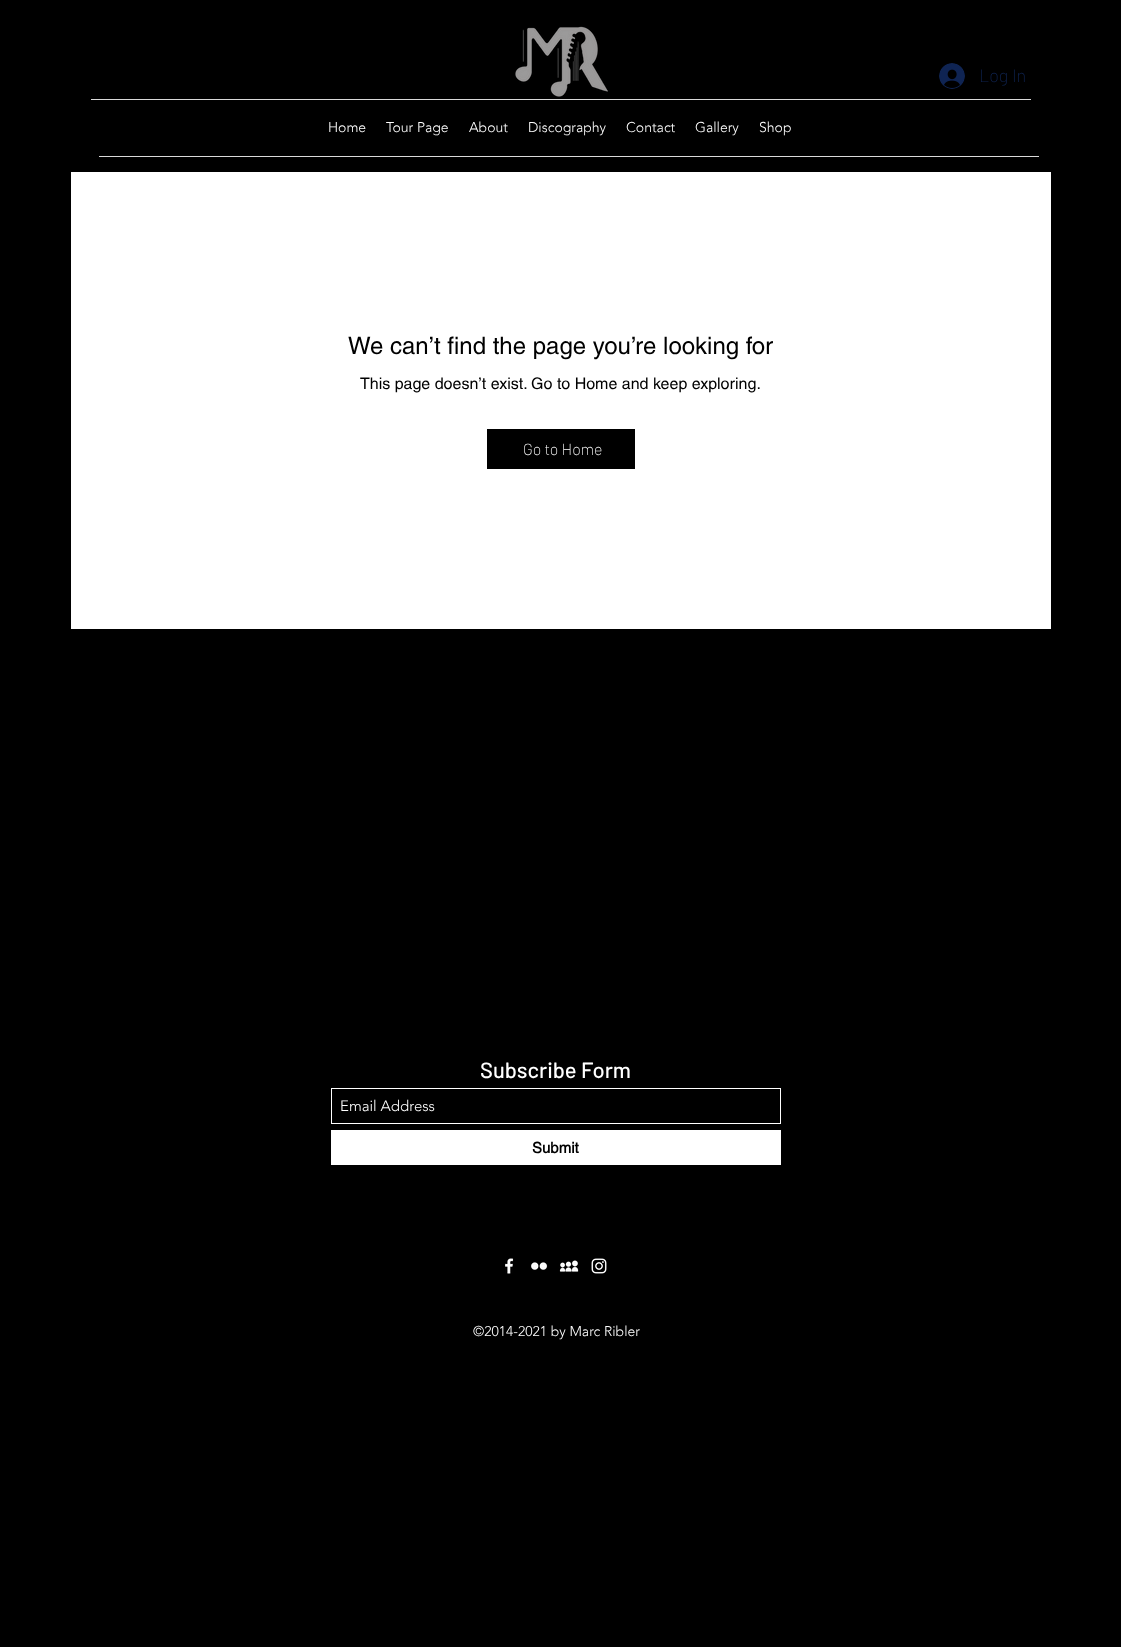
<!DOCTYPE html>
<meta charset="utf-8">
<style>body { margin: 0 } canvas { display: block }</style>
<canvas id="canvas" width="1121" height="1647"></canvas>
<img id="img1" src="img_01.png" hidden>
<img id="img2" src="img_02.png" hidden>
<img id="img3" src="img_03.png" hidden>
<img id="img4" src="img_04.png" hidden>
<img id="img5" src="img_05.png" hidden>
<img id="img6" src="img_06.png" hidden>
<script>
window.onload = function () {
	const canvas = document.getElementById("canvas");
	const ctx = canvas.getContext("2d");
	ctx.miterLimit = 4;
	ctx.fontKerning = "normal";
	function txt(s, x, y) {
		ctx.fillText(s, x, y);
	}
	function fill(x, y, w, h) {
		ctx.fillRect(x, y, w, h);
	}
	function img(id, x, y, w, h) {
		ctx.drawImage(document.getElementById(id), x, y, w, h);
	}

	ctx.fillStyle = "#000000";
	fill(0, 0, 1121, 1647);
	img("img1", 515, 26, 93, 71);
	img("img2", 939, 63, 26, 26);
	ctx.fillStyle = "#D9D9D9";
	fill(91, 99, 940, 1);
	fill(99, 156, 940, 1);
	ctx.fillStyle = "#FFFFFF";
	fill(71, 172, 980, 457);
	ctx.fillStyle = "#000000";
	fill(487, 429, 148, 40);
	ctx.strokeStyle = "#FFFFFF";
	ctx.strokeRect(331.5, 1088.5, 449, 35);
	ctx.fillStyle = "#FFFFFF";
	fill(331, 1130, 450, 35);
	img("img3", 505, 1258, 9, 16);
	img("img4", 531, 1262, 17, 8);
	img("img5", 559, 1260, 20, 12);
	img("img6", 591, 1258, 16, 16);
	ctx.font = "200 18px Barlow";
	ctx.fillStyle = "#0F2453";
	txt("Log In", 979, 82);
	ctx.font = "300 14px 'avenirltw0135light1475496'";
	ctx.fillStyle = "#FFFFFF";
	txt("Home", 328, 132);
	txt("Tour Page", 386, 132);
	txt("About", 469, 132);
	txt("Discography", 528, 132);
	txt("Contact", 626, 132);
	txt("Gallery", 695, 132);
	txt("Shop", 759, 132);
	ctx.font = "24px helvetica";
	ctx.fillStyle = "#000000";
	txt("We can’t find the page you’re looking for", 348, 354);
	ctx.font = "16px helvetica";
	txt("This page doesn’t exist. Go to Home and keep exploring.", 360, 389);
	ctx.font = "200 16px Barlow";
	ctx.fillStyle = "#FFFFFF";
	txt("Go to Home", 523, 455);
	ctx.font = "500 22px Barlow";
	txt("Subscribe Form", 480, 1078);
	ctx.font = "300 15px 'avenirltw0135light1475496'";
	txt("Email Address", 340, 1111);
	ctx.font = "bold 15px helvetica";
	ctx.fillStyle = "#000000";
	txt("Submit", 532, 1153);
	ctx.font = "300 14px 'avenirltw0135light1475496'";
	ctx.fillStyle = "#FFFFFF";
	txt("©2014-2021 by Marc Ribler", 473, 1336);
};
</script>
